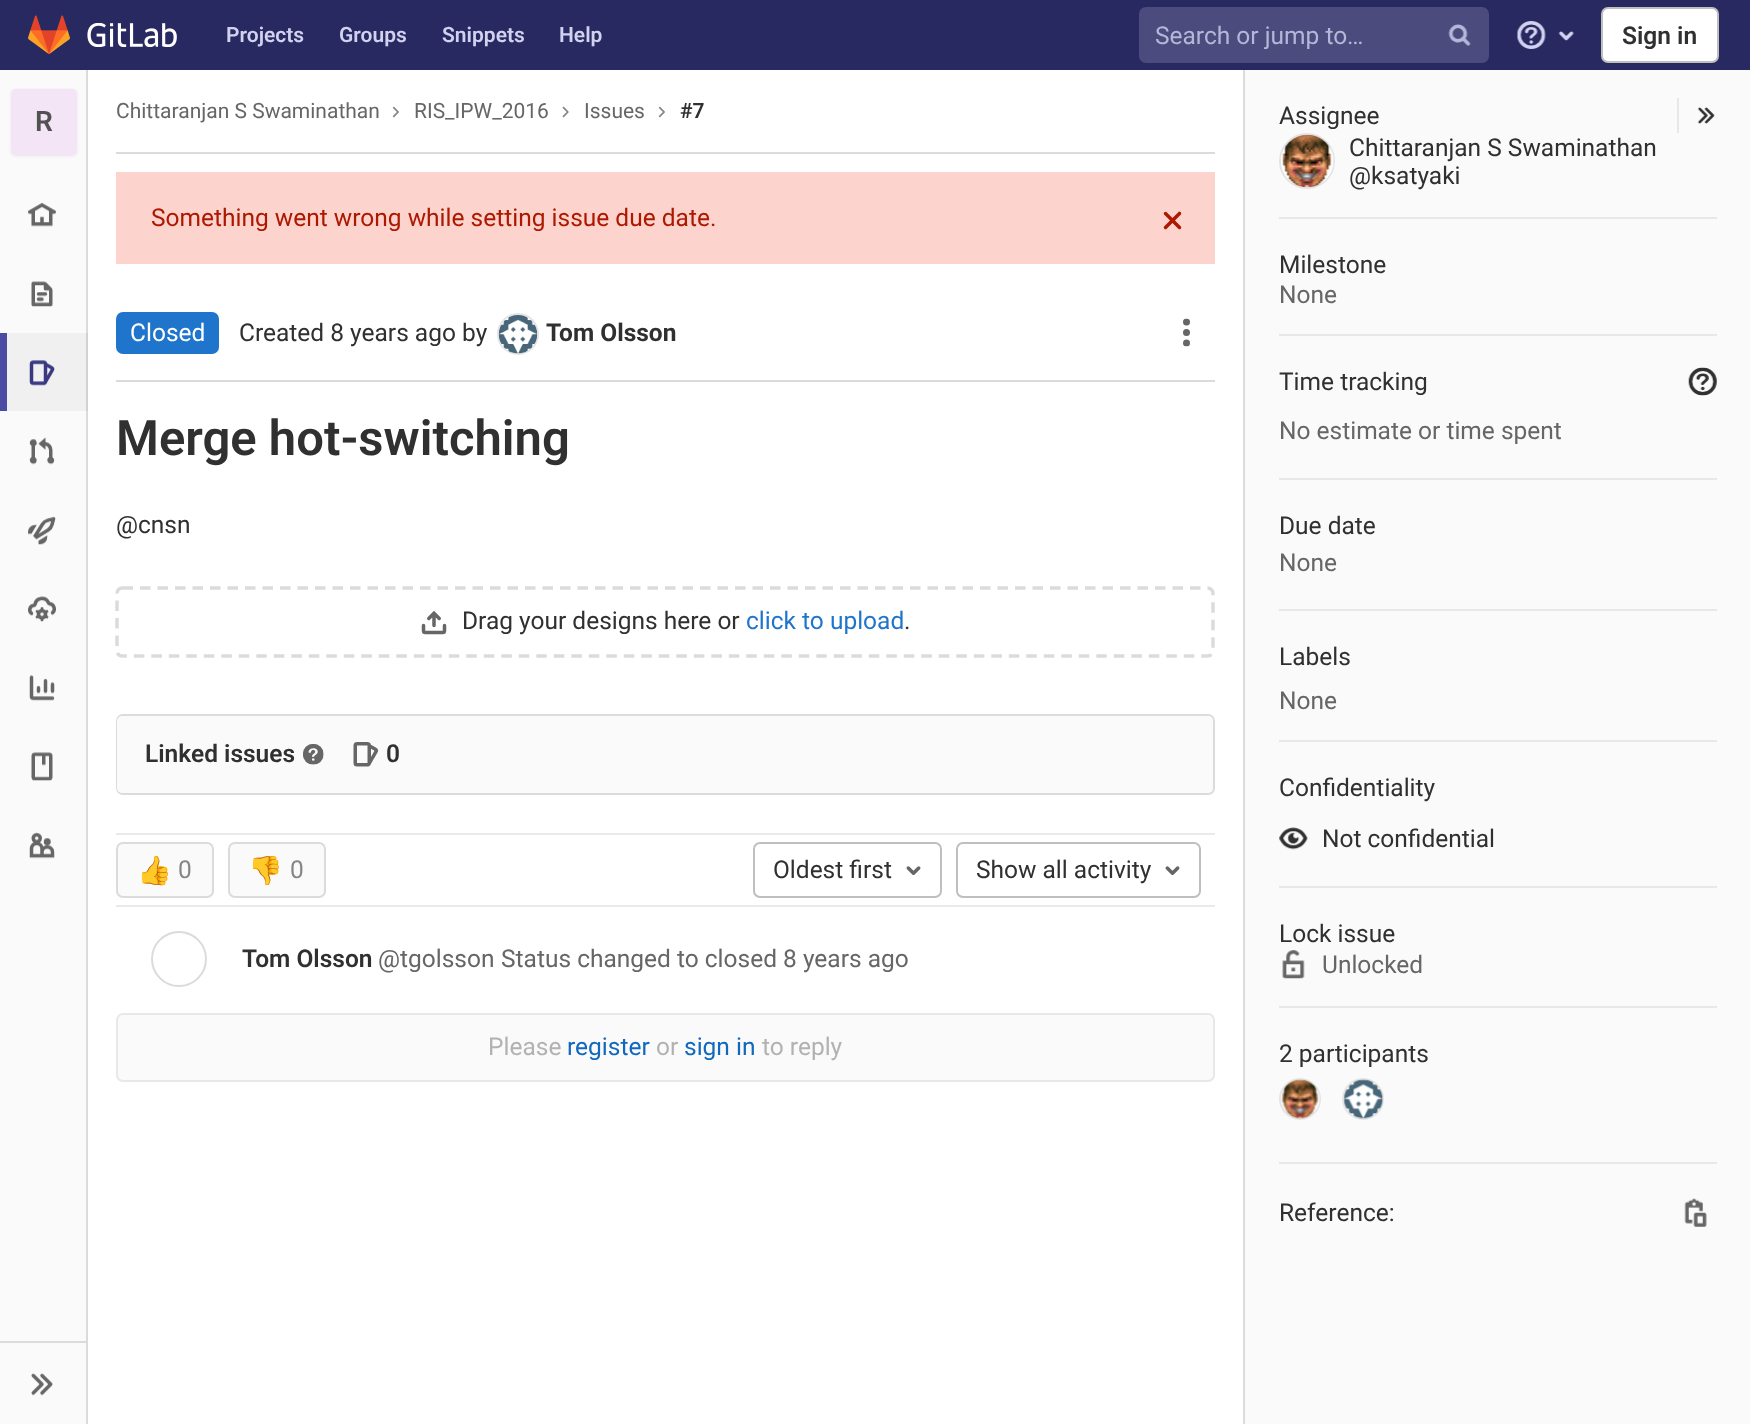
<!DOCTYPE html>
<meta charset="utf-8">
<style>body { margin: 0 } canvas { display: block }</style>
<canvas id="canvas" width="1750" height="1424"></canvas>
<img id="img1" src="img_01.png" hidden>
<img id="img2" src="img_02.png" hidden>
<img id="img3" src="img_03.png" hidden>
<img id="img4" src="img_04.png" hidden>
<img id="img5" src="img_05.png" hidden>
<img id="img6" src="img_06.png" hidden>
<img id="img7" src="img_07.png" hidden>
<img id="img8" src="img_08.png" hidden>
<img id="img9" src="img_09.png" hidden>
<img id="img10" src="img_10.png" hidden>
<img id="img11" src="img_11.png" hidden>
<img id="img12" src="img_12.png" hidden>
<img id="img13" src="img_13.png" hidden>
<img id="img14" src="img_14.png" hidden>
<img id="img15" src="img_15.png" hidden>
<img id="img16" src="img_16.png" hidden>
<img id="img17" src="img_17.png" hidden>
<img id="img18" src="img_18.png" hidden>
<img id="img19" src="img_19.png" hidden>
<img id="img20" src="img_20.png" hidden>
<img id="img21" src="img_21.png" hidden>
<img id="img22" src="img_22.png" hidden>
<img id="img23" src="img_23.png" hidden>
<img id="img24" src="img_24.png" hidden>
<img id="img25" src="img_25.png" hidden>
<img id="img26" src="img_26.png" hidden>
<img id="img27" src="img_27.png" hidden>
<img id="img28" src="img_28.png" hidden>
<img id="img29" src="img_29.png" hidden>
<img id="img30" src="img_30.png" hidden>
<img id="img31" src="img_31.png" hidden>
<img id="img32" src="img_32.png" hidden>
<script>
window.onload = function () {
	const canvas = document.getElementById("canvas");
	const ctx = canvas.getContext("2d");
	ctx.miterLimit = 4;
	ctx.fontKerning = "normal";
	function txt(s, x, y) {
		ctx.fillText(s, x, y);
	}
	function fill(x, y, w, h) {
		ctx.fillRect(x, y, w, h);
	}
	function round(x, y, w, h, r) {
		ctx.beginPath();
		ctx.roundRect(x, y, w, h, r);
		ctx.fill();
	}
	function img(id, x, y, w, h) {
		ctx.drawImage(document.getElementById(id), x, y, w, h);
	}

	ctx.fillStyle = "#FFFFFF";
	fill(0, 0, 1750, 1424);
	ctx.fillStyle = "#292961";
	fill(0, 0, 1750, 70);
	img("img1", 28, 15, 42, 39);
	img("img2", 87, 23, 90, 24);
	ctx.fillStyle = "#4B4B7E";
	round(1139, 7, 350, 56, 7);
	img("img3", 1448, 24, 23, 22);
	img("img4", 1516, 21, 30, 28);
	img("img5", 1558, 31, 16, 10);
	ctx.fillStyle = "#FFFFFF";
	ctx.beginPath();
	ctx.roundRect(1602, 8, 116, 54, 6);
	ctx.fill();
	ctx.strokeStyle = "#BFBFBF";
	ctx.lineWidth = 2;
	ctx.stroke();
	ctx.fillStyle = "#FAFAFA";
	fill(0, 70, 86, 1354);
	ctx.fillStyle = "#F0F0F0";
	fill(7, 333, 79, 78);
	ctx.fillStyle = "#DBDBDB";
	fill(86, 70, 2, 1354);
	ctx.fillStyle = "#D2D2D2";
	fill(86, 333, 2, 78);
	ctx.beginPath();
	ctx.roundRect(10, 89, 68, 68, 6);
	ctx.strokeStyle = "#F5F5F5";
	ctx.stroke();
	ctx.fillStyle = "#F3E5F5";
	round(11, 89, 66, 67, 5);
	img("img6", 28, 202, 28, 25);
	img("img7", 31, 281, 22, 26);
	ctx.fillStyle = "#4B4BA3";
	fill(0, 333, 7, 78);
	img("img8", 29, 360, 26, 26);
	img("img9", 29, 437, 26, 28);
	img("img10", 28, 516, 28, 29);
	img("img11", 28, 596, 28, 26);
	img("img12", 29, 675, 26, 26);
	img("img13", 31, 752, 22, 29);
	img("img14", 29, 832, 26, 27);
	ctx.fillStyle = "#DBDBDB";
	fill(0, 1341, 86, 2);
	img("img15", 31, 1373, 22, 23);
	fill(116, 152, 1099, 2);
	img("img16", 392, 106, 7, 12);
	img("img17", 562, 106, 7, 12);
	img("img16", 658, 106, 7, 12);
	ctx.fillStyle = "#FDD4CD";
	fill(116, 172, 1099, 92);
	img("img18", 1163, 211, 19, 19);
	ctx.fillStyle = "#FAFAFA";
	fill(1245, 70, 505, 1354);
	ctx.fillStyle = "#DBDBDB";
	fill(1243, 70, 2, 1354);
	ctx.fillStyle = "#E8E8E8";
	fill(1279, 217, 438, 2);
	fill(1677, 98, 2, 35);
	img("img19", 1697, 107, 18, 17);
	ctx.fillStyle = "#FDFDFD";
	ctx.beginPath();
	ctx.arc(1307, 161, 27, 0, Math.PI * 2);
	ctx.fill();
	ctx.strokeStyle = "#E3E3E3";
	ctx.stroke();
	img("img20", 1281, 134, 53, 54);
	ctx.fillStyle = "#E8E8E8";
	fill(1279, 334, 438, 2);
	fill(1279, 478, 438, 2);
	img("img21", 1688, 367, 29, 29);
	fill(1279, 609, 438, 2);
	fill(1279, 740, 438, 2);
	fill(1279, 886, 438, 2);
	img("img22", 1279, 827, 29, 23);
	fill(1279, 1006, 438, 2);
	img("img23", 1282, 950, 23, 29);
	fill(1279, 1162, 438, 2);
	ctx.fillStyle = "#FDFDFD";
	ctx.beginPath();
	ctx.arc(1300, 1099, 20, 0, Math.PI * 2);
	ctx.fill();
	ctx.strokeStyle = "#E4E4E4";
	ctx.stroke();
	img("img24", 1281, 1079, 39, 40);
	ctx.beginPath();
	ctx.arc(1363, 1099, 20, 0, Math.PI * 2);
	ctx.fill();
	ctx.stroke();
	img("img25", 1343, 1079, 40, 40);
	img("img26", 1684, 1198, 23, 29);
	ctx.fillStyle = "#DBDBDB";
	fill(116, 380, 1099, 2);
	ctx.fillStyle = "#1F75CB";
	round(116, 312, 103, 42, 7);
	ctx.beginPath();
	ctx.arc(518, 334, 20, 0, Math.PI * 2);
	ctx.stroke();
	img("img27", 498, 315, 40, 39);
	img("img28", 1183, 318, 7, 29);
	ctx.fillStyle = "#EAEAEA";
	fill(116, 833, 1099, 2);
	ctx.beginPath();
	ctx.moveTo(122.5, 588);
	ctx.lineTo(1207.5, 588);
	ctx.bezierCurveTo(1210.5, 588, 1213, 590.5, 1213, 593);
	ctx.lineTo(1213, 651);
	ctx.bezierCurveTo(1213, 654, 1210.5, 656, 1207.5, 656);
	ctx.lineTo(122.5, 656);
	ctx.bezierCurveTo(119.5, 656, 117, 654, 117, 651);
	ctx.lineTo(117, 593);
	ctx.bezierCurveTo(117, 590.5, 119.5, 588, 122.5, 588);
	ctx.closePath();
	ctx.strokeStyle = "#DBDBDB";
	ctx.lineWidth = 3.5;
	ctx.setLineDash([10.5, 7]);
	ctx.stroke();
	img("img29", 421, 610, 26, 25);
	ctx.beginPath();
	ctx.roundRect(117, 715, 1097, 79, 6);
	ctx.lineWidth = 2;
	ctx.setLineDash([]);
	ctx.stroke();
	ctx.fillStyle = "#FAFAFA";
	round(117, 716, 1096, 77, 5);
	img("img30", 303, 744, 21, 21);
	img("img31", 353, 742, 26, 25);
	ctx.fillStyle = "#EAEAEA";
	fill(116, 905, 1099, 2);
	ctx.fillStyle = "#FAFAFA";
	ctx.beginPath();
	ctx.roundRect(117, 843, 96, 54, 6);
	ctx.fill();
	ctx.stroke();
	ctx.beginPath();
	ctx.roundRect(229, 843, 96, 54, 6);
	ctx.fill();
	ctx.stroke();
	ctx.beginPath();
	ctx.roundRect(754, 843, 187, 54, 6);
	ctx.strokeStyle = "#BFBFBF";
	ctx.stroke();
	img("img32", 906, 866, 15, 9);
	ctx.beginPath();
	ctx.roundRect(957, 843, 243, 54, 6);
	ctx.stroke();
	img("img32", 1165, 866, 15, 9);
	ctx.beginPath();
	ctx.arc(179, 959, 27, 0, Math.PI * 2);
	ctx.strokeStyle = "#DBDBDB";
	ctx.stroke();
	ctx.beginPath();
	ctx.roundRect(117, 1014, 1097, 67, 6);
	ctx.fill();
	ctx.strokeStyle = "#E8E8E8";
	ctx.stroke();
	ctx.font = "600 21px Roboto";
	ctx.fillStyle = "#D1D1F0";
	txt("Projects", 226, 42);
	txt("Groups", 339, 42);
	txt("Snippets", 442, 42);
	txt("Help", 559, 42);
	ctx.save();
	ctx.beginPath();
	ctx.rect(1155, 21, 287, 28);
	ctx.clip();
	ctx.font = "24.5px Roboto";
	ctx.fillStyle = "#B6B6D9";
	txt("Search or jump to…", 1155, 44);
	ctx.restore();
	ctx.font = "600 24.5px Roboto";
	ctx.fillStyle = "#303030";
	txt("Sign in", 1622, 44);
	ctx.font = "600 28px Roboto";
	ctx.fillStyle = "#525252";
	txt("R", 35, 131);
	ctx.font = "21px Roboto";
	ctx.fillStyle = "#666666";
	txt("Chittaranjan S Swaminathan", 116, 118);
	txt("RIS_IPW_2016", 414, 118);
	txt("Issues", 584, 118);
	ctx.font = "600 21px Roboto";
	ctx.fillStyle = "#303030";
	txt("#7", 680, 118);
	ctx.font = "24.5px Roboto";
	ctx.fillStyle = "#AE1800";
	txt("Something went wrong while setting issue due date.", 151, 226);
	ctx.fillStyle = "#303030";
	txt("Assignee", 1279, 124);
	txt("Chittaranjan S Swaminathan", 1349, 156);
	txt("@ksatyaki", 1349, 184);
	txt("Milestone", 1279, 273);
	ctx.fillStyle = "#666666";
	txt("None", 1279, 303);
	ctx.fillStyle = "#303030";
	txt("Time tracking", 1279, 390);
	ctx.fillStyle = "#666666";
	txt("No estimate or time spent", 1279, 439);
	ctx.fillStyle = "#303030";
	txt("Due date", 1279, 534);
	ctx.fillStyle = "#666666";
	txt("None", 1279, 571);
	ctx.fillStyle = "#303030";
	txt("Labels", 1279, 665);
	ctx.fillStyle = "#666666";
	txt("None", 1279, 709);
	ctx.fillStyle = "#303030";
	txt("Confidentiality", 1279, 796);
	txt("Not confidential", 1322, 847);
	txt("Lock issue", 1279, 942);
	ctx.fillStyle = "#666666";
	txt("Unlocked", 1322, 973);
	ctx.fillStyle = "#303030";
	txt("2 participants", 1279, 1062);
	txt("Reference:", 1279, 1221);
	ctx.fillStyle = "#FFFFFF";
	txt("Closed", 130, 341);
	ctx.fillStyle = "#303030";
	txt("Created 8 years ago by", 239, 341);
	ctx.font = "bold 24.5px Roboto";
	txt("Tom Olsson", 546, 341);
	ctx.font = "600 49px Roboto";
	txt("Merge hot-switching", 116, 455);
	ctx.font = "24.5px Roboto";
	txt("@cnsn", 116, 533);
	txt("Drag your designs here or", 462, 629);
	ctx.fillStyle = "#1F75CB";
	txt("click to upload", 746, 629);
	ctx.fillStyle = "#303030";
	txt(".", 904, 629);
	ctx.font = "600 24.5px Roboto";
	txt("Linked issues", 145, 762);
	txt("0", 386, 762);
	ctx.font = "28px Noto Color Emoji";
	ctx.fillStyle = "#868686";
	txt("👍", 137, 880);
	ctx.font = "24.5px Roboto";
	txt("0", 178, 878);
	ctx.font = "28px Noto Color Emoji";
	txt("👎", 248, 880);
	ctx.font = "24.5px Roboto";
	txt("0", 290, 878);
	ctx.fillStyle = "#303030";
	txt("Oldest first", 773, 878);
	txt("Show all activity", 976, 878);
	ctx.font = "600 24.5px Roboto";
	txt("Tom Olsson", 242, 967);
	ctx.font = "24.5px Roboto";
	ctx.fillStyle = "#666666";
	txt("@tgolsson", 378, 967);
	txt("Status changed to closed 8 years ago", 501, 967);
	ctx.fillStyle = "#B2B2B2";
	txt("Please", 488, 1055);
	ctx.fillStyle = "#1068BF";
	txt("register", 567, 1055);
	ctx.fillStyle = "#B2B2B2";
	txt("or", 656, 1055);
	ctx.fillStyle = "#1068BF";
	txt("sign in", 684, 1055);
	ctx.fillStyle = "#B2B2B2";
	txt("to reply", 762, 1055);
};
</script>
